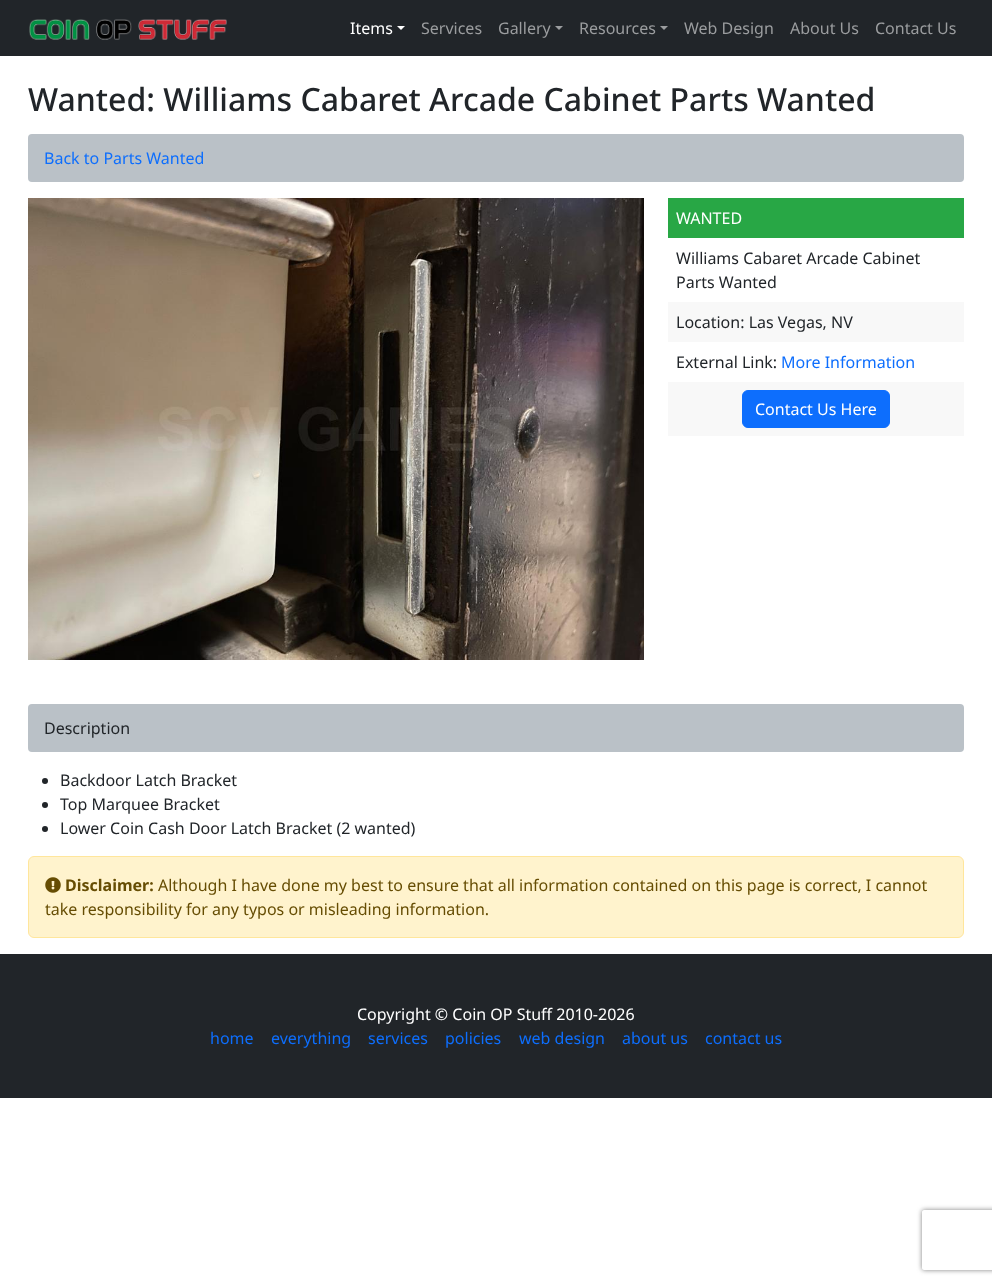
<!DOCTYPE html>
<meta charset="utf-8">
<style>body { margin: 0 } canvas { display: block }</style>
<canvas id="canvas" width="992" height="1284"></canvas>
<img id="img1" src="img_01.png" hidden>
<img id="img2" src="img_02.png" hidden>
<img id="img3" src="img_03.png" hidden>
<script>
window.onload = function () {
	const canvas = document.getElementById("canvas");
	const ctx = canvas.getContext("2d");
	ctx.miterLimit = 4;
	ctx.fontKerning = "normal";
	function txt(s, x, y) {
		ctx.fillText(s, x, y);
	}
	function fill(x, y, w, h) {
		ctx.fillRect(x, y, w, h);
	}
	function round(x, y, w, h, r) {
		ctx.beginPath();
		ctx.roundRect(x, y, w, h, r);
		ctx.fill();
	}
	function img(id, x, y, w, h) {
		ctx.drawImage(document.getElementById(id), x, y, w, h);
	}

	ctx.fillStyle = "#FFFFFF";
	fill(0, 0, 992, 1284);
	ctx.fillStyle = "#212529";
	fill(0, 0, 992, 56);
	img("img1", 29, 19, 198, 21);
	ctx.fillStyle = "#FFFFFF";
	ctx.beginPath();
	ctx.moveTo(397, 26);
	ctx.lineTo(405, 26);
	ctx.lineTo(401, 30);
	ctx.closePath();
	ctx.fill();
	ctx.fillStyle = "#9B9D9F";
	ctx.beginPath();
	ctx.moveTo(555, 26);
	ctx.lineTo(563, 26);
	ctx.lineTo(559, 30);
	ctx.closePath();
	ctx.fill();
	ctx.beginPath();
	ctx.moveTo(660, 26);
	ctx.lineTo(668, 26);
	ctx.lineTo(664, 30);
	ctx.closePath();
	ctx.fill();
	ctx.fillStyle = "#BAC1C7";
	round(28, 134, 936, 48, 4);
	img("img2", 28, 198, 616, 462);
	ctx.fillStyle = "#28A745";
	fill(668, 198, 296, 40);
	ctx.fillStyle = "#F8F8F8";
	fill(668, 302, 296, 40);
	fill(668, 382, 296, 54);
	ctx.fillStyle = "#0D6EFD";
	ctx.beginPath();
	ctx.roundRect(742.5, 390.5, 147, 37, 5.5);
	ctx.fill();
	ctx.strokeStyle = "#0D6EFD";
	ctx.stroke();
	ctx.fillStyle = "#BAC1C7";
	round(28, 704, 936, 48, 4);
	ctx.fillStyle = "#212529";
	ctx.beginPath();
	ctx.arc(45, 781, 3, 0, Math.PI * 2);
	ctx.fill();
	ctx.beginPath();
	ctx.arc(45, 805, 3, 0, Math.PI * 2);
	ctx.fill();
	ctx.beginPath();
	ctx.arc(45, 829, 3, 0, Math.PI * 2);
	ctx.fill();
	ctx.fillStyle = "#FFF3CD";
	ctx.beginPath();
	ctx.roundRect(28.5, 856.5, 935, 81, 5.5);
	ctx.fill();
	ctx.strokeStyle = "#FFE69C";
	ctx.stroke();
	img("img3", 45, 877, 16, 16);
	ctx.fillStyle = "#212529";
	fill(0, 954, 992, 144);
	ctx.save();
	ctx.beginPath();
	ctx.moveTo(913, 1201);
	ctx.lineTo(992, 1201);
	ctx.lineTo(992, 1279);
	ctx.lineTo(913, 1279);
	ctx.closePath();
	ctx.moveTo(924, 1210);
	ctx.lineTo(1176, 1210);
	ctx.bezierCurveTo(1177, 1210, 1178, 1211, 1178, 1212);
	ctx.lineTo(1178, 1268);
	ctx.bezierCurveTo(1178, 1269, 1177, 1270, 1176, 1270);
	ctx.lineTo(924, 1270);
	ctx.bezierCurveTo(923, 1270, 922, 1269, 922, 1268);
	ctx.lineTo(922, 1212);
	ctx.bezierCurveTo(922, 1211, 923, 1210, 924, 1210);
	ctx.closePath();
	ctx.clip("evenodd");
	ctx.fillStyle = "#808080";
	ctx.filter = "blur(2.5px)";
	ctx.beginPath();
	ctx.roundRect(922, 1210, 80, 60, 2);
	ctx.fill();
	ctx.filter = "none";
	ctx.restore();
	ctx.font = "16px Noto Sans";
	ctx.fillStyle = "#FFFFFF";
	txt("Items", 350, 34);
	ctx.fillStyle = "#9B9D9F";
	txt("Services", 421, 34);
	txt("Gallery", 498, 34);
	txt("Resources", 579, 34);
	txt("Web Design", 684, 34);
	txt("About Us", 790, 34);
	txt("Contact Us", 875, 34);
	ctx.font = "500 32px Noto Sans";
	ctx.fillStyle = "#212529";
	txt("Wanted: Williams Cabaret Arcade Cabinet Parts Wanted", 28, 111);
	ctx.font = "16px Noto Sans";
	ctx.fillStyle = "#0D6EFD";
	txt("Back to Parts Wanted", 44, 164);
	ctx.fillStyle = "#FFFFFF";
	txt("WANTED", 676, 224);
	ctx.fillStyle = "#212529";
	txt("Williams Cabaret Arcade Cabinet", 676, 264);
	txt("Parts Wanted", 676, 288);
	txt("Location: Las Vegas, NV", 676, 328);
	txt("External Link:", 676, 368);
	ctx.fillStyle = "#0D6EFD";
	txt("More Information", 781, 368);
	ctx.fillStyle = "#FFFFFF";
	txt("Contact Us Here", 755, 415);
	ctx.fillStyle = "#212529";
	txt("Description", 44, 734);
	txt("Backdoor Latch Bracket", 60, 786);
	txt("Top Marquee Bracket", 60, 810);
	txt("Lower Coin Cash Door Latch Bracket (2 wanted)", 60, 834);
	ctx.font = "bold 16px Noto Sans";
	ctx.fillStyle = "#664D03";
	txt("Disclaimer:", 65, 891);
	ctx.font = "16px Noto Sans";
	txt("Although I have done my best to ensure that all information contained on this page is correct, I cannot", 158, 891);
	txt("take responsibility for any typos or misleading information.", 45, 915);
	ctx.fillStyle = "#FFFFFF";
	txt("Copyright © Coin OP Stuff 2010-2026", 357, 1020);
	ctx.fillStyle = "#0D6EFD";
	txt("home", 210, 1044);
	txt("everything", 271, 1044);
	txt("services", 368, 1044);
	txt("policies", 445, 1044);
	txt("web design", 519, 1044);
	txt("about us", 622, 1044);
	txt("contact us", 705, 1044);
};
</script>
